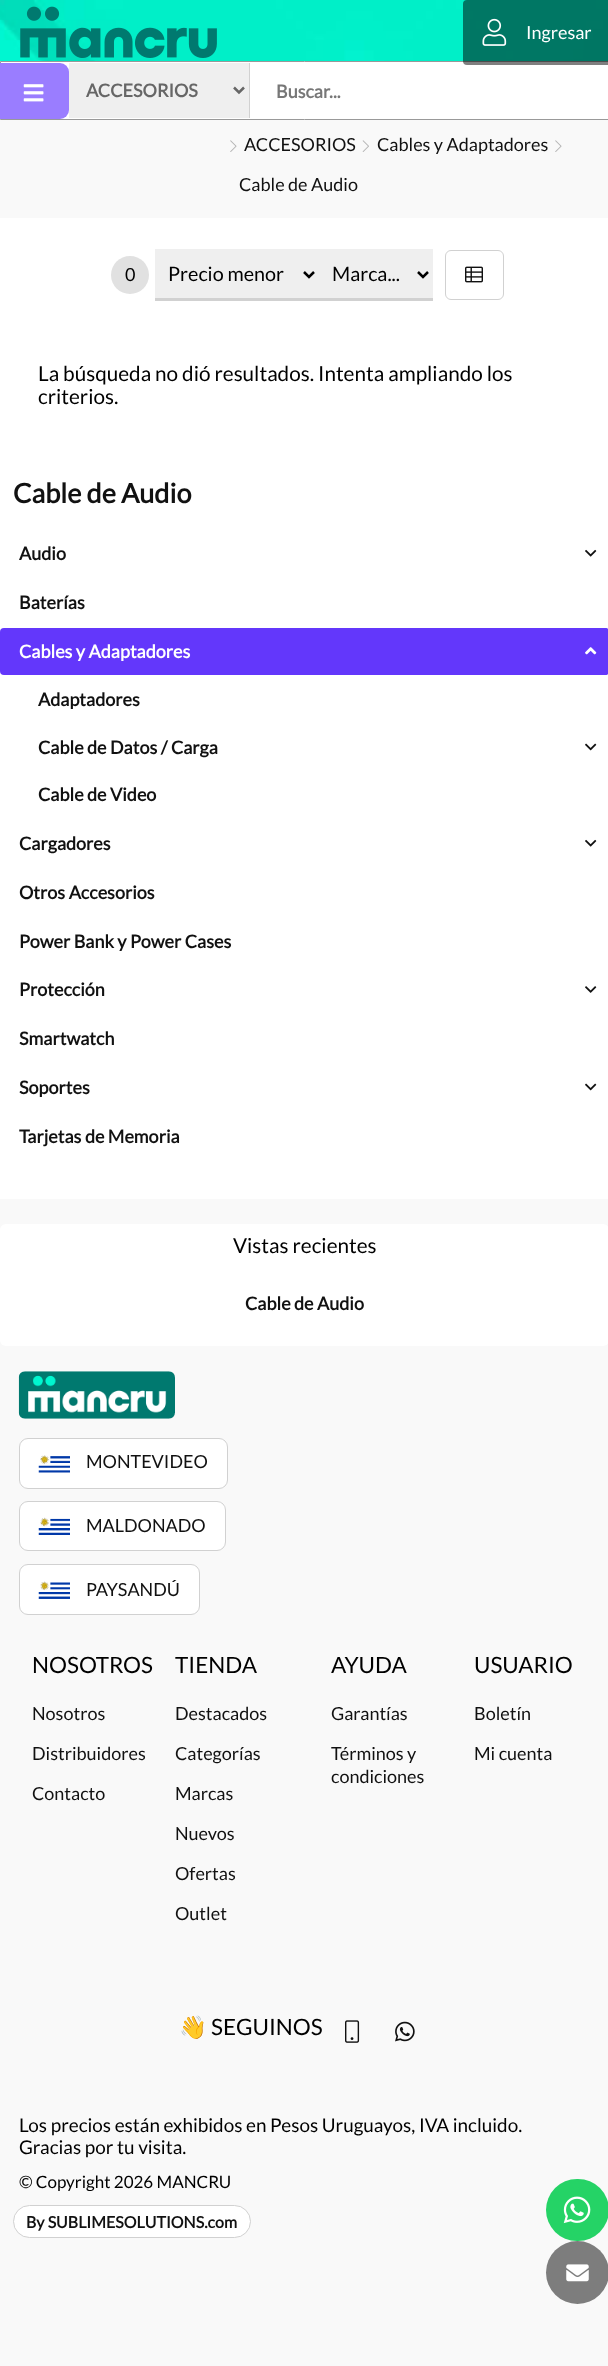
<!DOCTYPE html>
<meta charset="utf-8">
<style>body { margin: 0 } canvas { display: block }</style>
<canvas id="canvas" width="608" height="2366"></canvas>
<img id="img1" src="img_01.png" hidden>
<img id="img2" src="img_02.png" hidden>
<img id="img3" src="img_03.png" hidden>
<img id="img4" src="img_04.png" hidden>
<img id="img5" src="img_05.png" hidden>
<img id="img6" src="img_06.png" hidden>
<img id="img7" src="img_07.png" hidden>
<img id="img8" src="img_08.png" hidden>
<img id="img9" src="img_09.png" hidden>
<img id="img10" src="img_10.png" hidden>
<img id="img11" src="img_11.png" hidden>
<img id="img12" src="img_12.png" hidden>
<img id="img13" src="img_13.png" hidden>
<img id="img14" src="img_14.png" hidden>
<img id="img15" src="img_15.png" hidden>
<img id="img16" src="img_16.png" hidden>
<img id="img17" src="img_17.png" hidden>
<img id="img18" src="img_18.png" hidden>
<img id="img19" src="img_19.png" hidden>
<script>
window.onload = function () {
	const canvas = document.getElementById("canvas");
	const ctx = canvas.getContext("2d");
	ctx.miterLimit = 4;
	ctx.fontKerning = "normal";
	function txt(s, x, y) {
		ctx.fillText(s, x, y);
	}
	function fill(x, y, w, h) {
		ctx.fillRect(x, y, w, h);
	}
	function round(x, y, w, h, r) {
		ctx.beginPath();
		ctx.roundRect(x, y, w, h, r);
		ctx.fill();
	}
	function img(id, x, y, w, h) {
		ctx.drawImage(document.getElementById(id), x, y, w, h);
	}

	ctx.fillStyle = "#F9F9F9";
	fill(0, 0, 608, 2366);
	img("img1", 0, 0, 608, 61);
	img("img2", 20, 6, 197, 52);
	ctx.fillStyle = "#FFFFFF";
	ctx.beginPath();
	ctx.rect(0.5, 61.5, 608, 58);
	ctx.fill();
	ctx.strokeStyle = "#999999";
	ctx.stroke();
	ctx.fillStyle = "rgba(0, 0, 0, 0.5)";
	round(463, 0, 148, 65, 4);
	img("img3", 482, 18, 25, 28);
	ctx.fillStyle = "#9A7DFF";
	ctx.beginPath();
	ctx.roundRect(0, 63, 69, 56, [0, 9, 9, 0]);
	ctx.fill();
	img("img4", 23, 84, 21, 18);
	ctx.fillStyle = "#EFEFEF";
	fill(69, 63, 180, 55);
	ctx.fillStyle = "#D1D1D1";
	fill(249, 63, 1, 55);
	ctx.beginPath();
	ctx.moveTo(234, 87.5);
	ctx.lineTo(239, 92.5);
	ctx.lineTo(244, 87.5);
	ctx.strokeStyle = "#666666";
	ctx.lineWidth = 2.5;
	ctx.stroke();
	img("img5", 230, 140, 7, 12);
	img("img6", 362, 140, 7, 12);
	img("img5", 555, 140, 7, 12);
	ctx.fillStyle = "#FFFFFF";
	fill(0, 218, 608, 981);
	ctx.fillStyle = "#E1E1E1";
	ctx.beginPath();
	ctx.arc(130, 275, 19, 0, Math.PI * 2);
	ctx.fill();
	ctx.fillStyle = "#EFEFEF";
	fill(155, 249, 278, 49);
	ctx.beginPath();
	ctx.moveTo(304, 272);
	ctx.lineTo(309, 277);
	ctx.lineTo(314, 272);
	ctx.strokeStyle = "#000000";
	ctx.stroke();
	ctx.fillStyle = "#D1D1D1";
	fill(155, 298, 278, 3);
	ctx.beginPath();
	ctx.moveTo(418, 272);
	ctx.lineTo(423, 277);
	ctx.lineTo(428, 272);
	ctx.stroke();
	ctx.beginPath();
	ctx.roundRect(445.5, 250.5, 58, 49, 5.5);
	ctx.strokeStyle = "#D1D1D1";
	ctx.lineWidth = 1;
	ctx.stroke();
	img("img7", 465, 266, 18, 17);
	img("img8", 585, 549, 12, 8);
	ctx.fillStyle = "#6337FB";
	round(0, 628, 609, 47, 4);
	round(573, 628, 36, 47, 4);
	img("img9", 585, 647, 12, 8);
	img("img10", 585, 743, 12, 8);
	img("img8", 585, 839, 12, 8);
	img("img11", 585, 986, 12, 7);
	img("img10", 585, 1083, 12, 8);
	ctx.fillStyle = "#FFFFFF";
	round(0, 1224, 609, 122, 6);
	img("img12", 18, 1371, 157, 48);
	ctx.beginPath();
	ctx.roundRect(19.5, 1438.5, 208, 50, 8.5);
	ctx.fill();
	ctx.stroke();
	img("img13", 38, 1455, 32, 18);
	ctx.beginPath();
	ctx.roundRect(19.5, 1501.5, 206, 49, 8.5);
	ctx.fill();
	ctx.stroke();
	img("img14", 38, 1517, 32, 18);
	ctx.beginPath();
	ctx.roundRect(19.5, 1564.5, 180, 50, 8.5);
	ctx.fill();
	ctx.stroke();
	img("img15", 38, 1581, 32, 18);
	img("img16", 345, 2020, 15, 23);
	img("img17", 395, 2021, 20, 21);
	ctx.beginPath();
	ctx.roundRect(13.5, 2205.5, 237, 32, 16);
	ctx.fill();
	ctx.stroke();
	ctx.fillStyle = "#25D366";
	round(546, 2179, 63, 62, 31);
	img("img18", 563, 2196, 28, 28);
	ctx.fillStyle = "#7D7D7D";
	ctx.beginPath();
	ctx.arc(577.5, 2272.5, 31.5, 0, Math.PI * 2);
	ctx.fill();
	img("img19", 566, 2264, 23, 18);
	ctx.font = "18px Lato";
	ctx.fillStyle = "#FFFFFF";
	txt("Ingresar", 526, 39);
	ctx.font = "bold 18px Lato";
	ctx.fillStyle = "#666666";
	txt("ACCESORIOS", 86, 97);
	ctx.fillStyle = "#777777";
	txt("Buscar...", 276, 98);
	ctx.font = "18px Lato";
	ctx.fillStyle = "#111111";
	txt("ACCESORIOS", 244, 151);
	txt("Cables y Adaptadores", 377, 151);
	txt("Cable de Audio", 239, 191);
	ctx.fillStyle = "#000000";
	txt("0", 125, 281);
	ctx.font = "19.75px Lato";
	txt("Precio menor", 168, 281);
	txt("Marca...", 332, 281);
	ctx.font = "20.7px Lato";
	txt("La búsqueda no dió resultados. Intenta ampliando los", 38, 381);
	txt("criterios.", 38, 404);
	ctx.font = "bold 27px Lato";
	ctx.fillStyle = "#111111";
	txt("Cable de Audio", 13, 503);
	ctx.font = "bold 18px Lato";
	txt("Audio", 19, 560);
	txt("Baterías", 19, 609);
	ctx.fillStyle = "#FFFFFF";
	txt("Cables y Adaptadores", 19, 658);
	ctx.fillStyle = "#111111";
	txt("Adaptadores", 38, 706);
	txt("Cable de Datos / Carga", 38, 754);
	txt("Cable de Video", 38, 801);
	txt("Cargadores", 19, 850);
	txt("Otros Accesorios", 19, 899);
	txt("Power Bank y Power Cases", 19, 948);
	txt("Protección", 19, 996);
	txt("Smartwatch", 19, 1045);
	txt("Soportes", 19, 1094);
	txt("Tarjetas de Memoria", 19, 1143);
	ctx.font = "20.7px Lato";
	ctx.fillStyle = "#000000";
	txt("Vistas recientes", 233, 1253);
	ctx.font = "bold 18px Lato";
	ctx.fillStyle = "#111111";
	txt("Cable de Audio", 245, 1310);
	ctx.font = "18px Lato";
	txt("MONTEVIDEO", 86, 1468);
	txt("MALDONADO", 86, 1532);
	txt("PAYSANDÚ", 86, 1596);
	ctx.font = "22.5px Lato";
	ctx.fillStyle = "#000000";
	txt("NOSOTROS", 32, 1673);
	ctx.font = "18px Lato";
	ctx.fillStyle = "#111111";
	txt("Nosotros", 32, 1720);
	txt("Distribuidores", 32, 1760);
	txt("Contacto", 32, 1800);
	ctx.font = "22.5px Lato";
	ctx.fillStyle = "#000000";
	txt("TIENDA", 175, 1673);
	ctx.font = "18px Lato";
	ctx.fillStyle = "#111111";
	txt("Destacados", 175, 1720);
	txt("Categorías", 175, 1760);
	txt("Marcas", 175, 1800);
	txt("Nuevos", 175, 1840);
	txt("Ofertas", 175, 1880);
	txt("Outlet", 175, 1920);
	ctx.font = "22.5px Lato";
	ctx.fillStyle = "#000000";
	txt("AYUDA", 331, 1673);
	ctx.font = "18px Lato";
	ctx.fillStyle = "#111111";
	txt("Garantías", 331, 1720);
	txt("Términos y", 331, 1760);
	txt("condiciones", 331, 1783);
	ctx.font = "22.5px Lato";
	ctx.fillStyle = "#000000";
	txt("USUARIO", 474, 1673);
	ctx.font = "18px Lato";
	ctx.fillStyle = "#111111";
	txt("Boletín", 474, 1720);
	txt("Mi cuenta", 474, 1760);
	ctx.font = "22.5px Noto Color Emoji";
	ctx.fillStyle = "#000000";
	txt("👋", 179, 2035);
	ctx.font = "22.5px Lato";
	txt("SEGUINOS", 211, 2035);
	ctx.font = "18.9px Lato";
	txt("Los precios están exhibidos en Pesos Uruguayos, IVA incluido.", 19, 2132);
	txt("Gracias por tu visita.", 19, 2154);
	ctx.font = "17px Lato";
	txt("© Copyright 2026 MANCRU", 19, 2188);
	ctx.font = "bold 16px Lato";
	ctx.fillStyle = "#111111";
	txt("By SUBLIMESOLUTIONS.com", 26, 2228);
};
</script>
